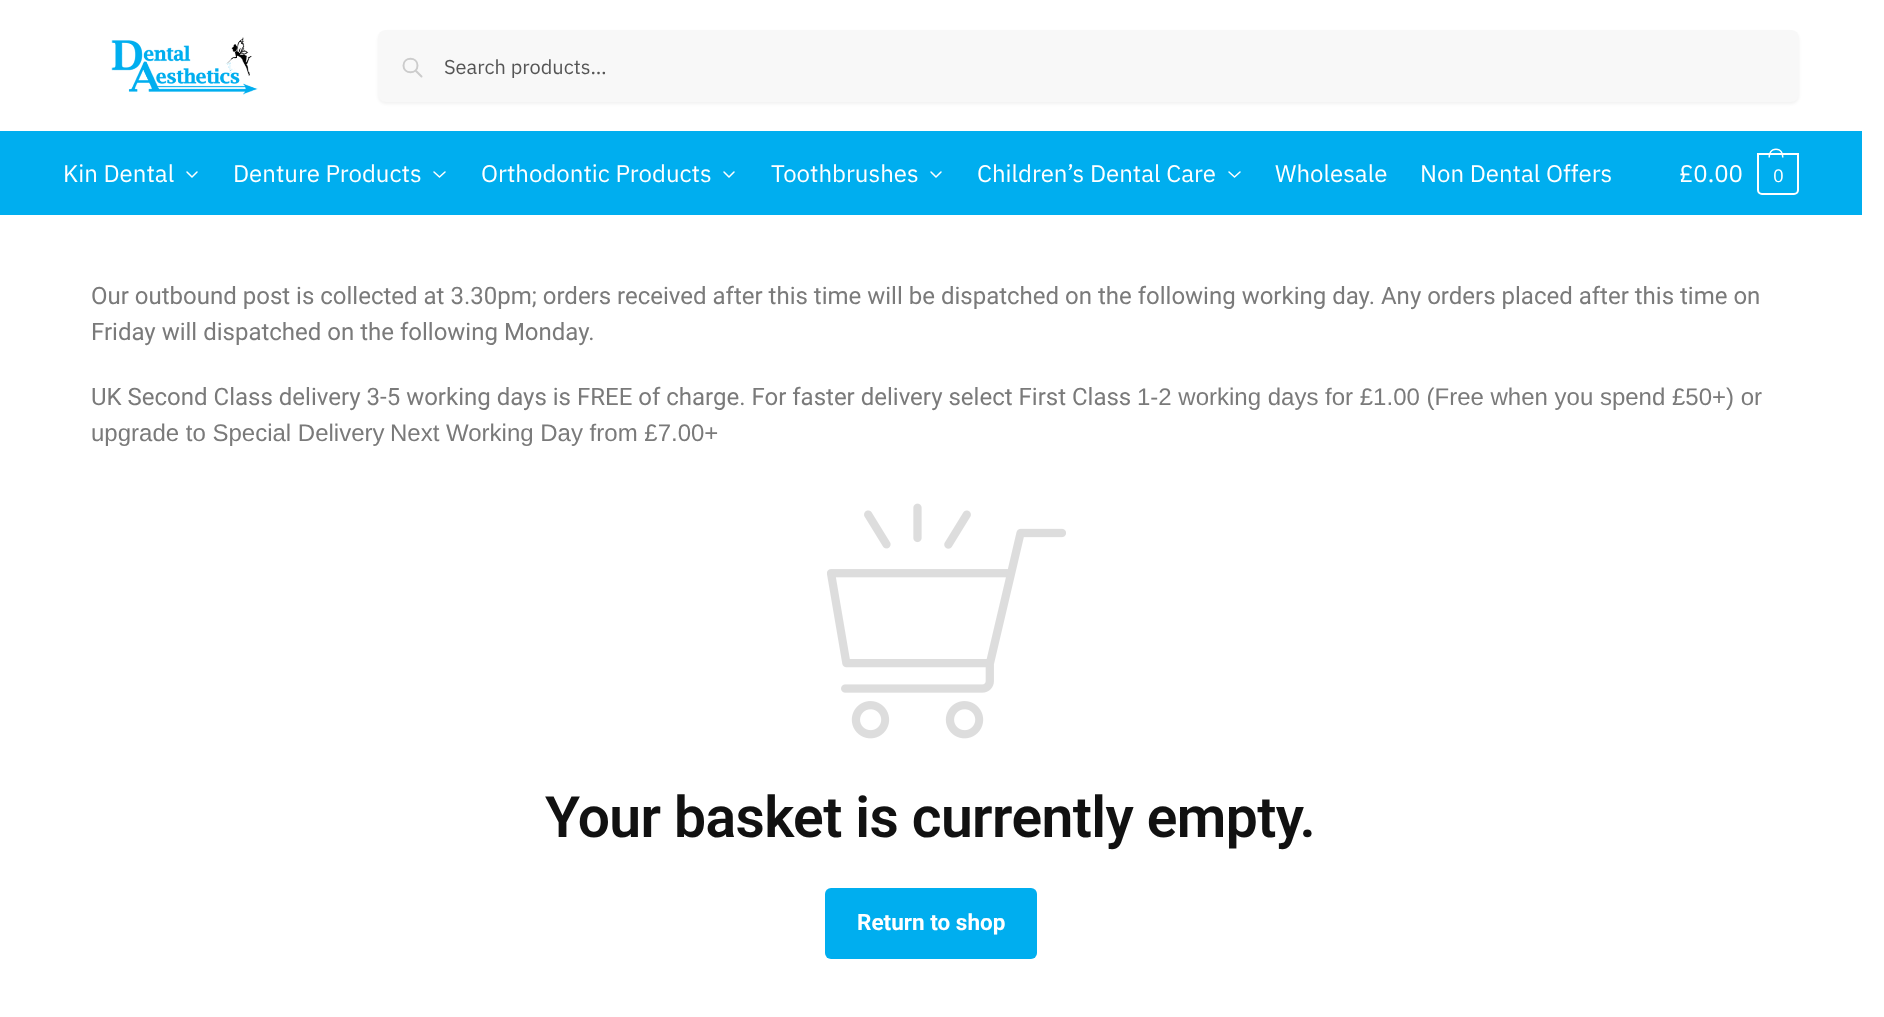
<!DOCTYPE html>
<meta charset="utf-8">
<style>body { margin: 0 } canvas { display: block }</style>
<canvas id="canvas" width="1884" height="1017"></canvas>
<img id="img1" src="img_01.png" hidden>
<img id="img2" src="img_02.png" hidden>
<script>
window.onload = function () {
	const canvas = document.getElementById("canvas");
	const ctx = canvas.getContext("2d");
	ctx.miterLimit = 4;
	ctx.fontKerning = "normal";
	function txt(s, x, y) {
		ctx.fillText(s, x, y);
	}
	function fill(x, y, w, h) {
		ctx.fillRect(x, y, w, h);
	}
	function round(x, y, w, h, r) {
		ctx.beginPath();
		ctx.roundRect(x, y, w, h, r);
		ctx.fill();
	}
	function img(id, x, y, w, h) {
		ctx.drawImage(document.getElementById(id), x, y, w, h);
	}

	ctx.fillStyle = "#FFFFFF";
	fill(0, 0, 1884, 1017);
	img("img1", 111, 37, 147, 58);
	ctx.fillStyle = "rgba(0, 0, 0, 0.05)";
	ctx.filter = "blur(1.5px)";
	ctx.beginPath();
	ctx.roundRect(378, 32, 1421, 72, 8);
	ctx.fill();
	ctx.filter = "none";
	ctx.fillStyle = "#F8F8F8";
	round(378, 30, 1421, 72, 8);
	ctx.beginPath();
	ctx.moveTo(421.5, 76.5);
	ctx.lineTo(415.5, 70.5);
	ctx.moveTo(417.5, 65.5);
	ctx.bezierCurveTo(417.5, 74.5, 403.5, 74.5, 403.5, 65.5);
	ctx.bezierCurveTo(403.5, 56.5, 417.5, 56.5, 417.5, 65.5);
	ctx.closePath();
	ctx.strokeStyle = "#CCCCCC";
	ctx.lineWidth = 2;
	ctx.lineCap = "round";
	ctx.lineJoin = "round";
	ctx.stroke();
	ctx.fillStyle = "#00AEEF";
	fill(0, 131, 1862, 84);
	ctx.beginPath();
	ctx.moveTo(197, 172);
	ctx.lineTo(192, 177);
	ctx.lineTo(187, 172);
	ctx.strokeStyle = "#FFFFFF";
	ctx.lineWidth = 1.5;
	ctx.stroke();
	ctx.beginPath();
	ctx.moveTo(445, 172);
	ctx.lineTo(439.5, 177);
	ctx.lineTo(434, 172);
	ctx.stroke();
	ctx.beginPath();
	ctx.moveTo(734, 172);
	ctx.lineTo(729, 177);
	ctx.lineTo(724, 172);
	ctx.stroke();
	ctx.beginPath();
	ctx.moveTo(941, 172);
	ctx.lineTo(936, 177);
	ctx.lineTo(931, 172);
	ctx.stroke();
	ctx.beginPath();
	ctx.moveTo(1240, 172);
	ctx.lineTo(1234.5, 177);
	ctx.lineTo(1229, 172);
	ctx.stroke();
	ctx.beginPath();
	ctx.roundRect(1758, 154, 40, 40, [0, 0, 4, 4]);
	ctx.lineWidth = 2;
	ctx.lineJoin = "miter";
	ctx.stroke();
	ctx.fillStyle = "#FFFFFF";
	ctx.beginPath();
	ctx.moveTo(1776, 148.5);
	ctx.bezierCurveTo(1781.5, 148.5, 1783.5, 153, 1783.5, 157.5);
	ctx.lineTo(1768.5, 157.5);
	ctx.bezierCurveTo(1768.5, 153, 1770.5, 148.5, 1776, 148.5);
	ctx.closePath();
	ctx.moveTo(1776, 150);
	ctx.bezierCurveTo(1780.5, 150, 1782, 153.5, 1782, 157.5);
	ctx.lineTo(1770, 157.5);
	ctx.bezierCurveTo(1770, 153.5, 1771.5, 150, 1776, 150);
	ctx.closePath();
	ctx.fill("evenodd");
	img("img2", 827, 503, 239, 236);
	ctx.fillStyle = "#00AEEF";
	round(825, 888, 212, 71, 6);
	ctx.font = "20px IBM Plex Sans";
	ctx.fillStyle = "#555555";
	txt("Search products…", 444, 74);
	ctx.font = "24px IBM Plex Sans";
	ctx.fillStyle = "#FFFFFF";
	txt("Kin Dental", 63, 182);
	txt("Denture Products", 233, 182);
	txt("Orthodontic Products", 481, 182);
	txt("Toothbrushes", 771, 182);
	txt("Children’s Dental Care", 977, 182);
	txt("Wholesale", 1275, 182);
	txt("Non Dental Offers", 1420, 182);
	txt("£0.00", 1679, 182);
	ctx.letterSpacing = "-1px";
	ctx.font = "18px IBM Plex Sans";
	txt("0", 1773, 182);
	ctx.letterSpacing = "0px";
	ctx.font = "24px Roboto";
	ctx.fillStyle = "#7A7A7A";
	txt("Our outbound post is collected at 3.30pm; orders received after this time will be dispatched on the following working day. Any orders placed after this time on", 91, 304);
	txt("Friday will dispatched on the following Monday.", 91, 340);
	txt("UK Second Class delivery 3-5 working days is FREE of charge. For faster delivery select First Class", 91, 405);
	ctx.font = "24px Liberation Sans";
	txt("1-2 working days for £1.00 (Free when you spend £50+) or", 1137, 405);
	txt("upgrade to Special Delivery", 91, 441);
	txt("Next Working Day from £7.00+", 390, 441);
	ctx.letterSpacing = "-0.6px";
	ctx.font = "600 57px Roboto";
	ctx.fillStyle = "#111111";
	txt("Your basket is currently empty.", 545, 837);
	ctx.letterSpacing = "0px";
	ctx.font = "bold 22.5px Roboto";
	ctx.fillStyle = "#FFFFFF";
	txt("Return to shop", 857, 930);
};
</script>
